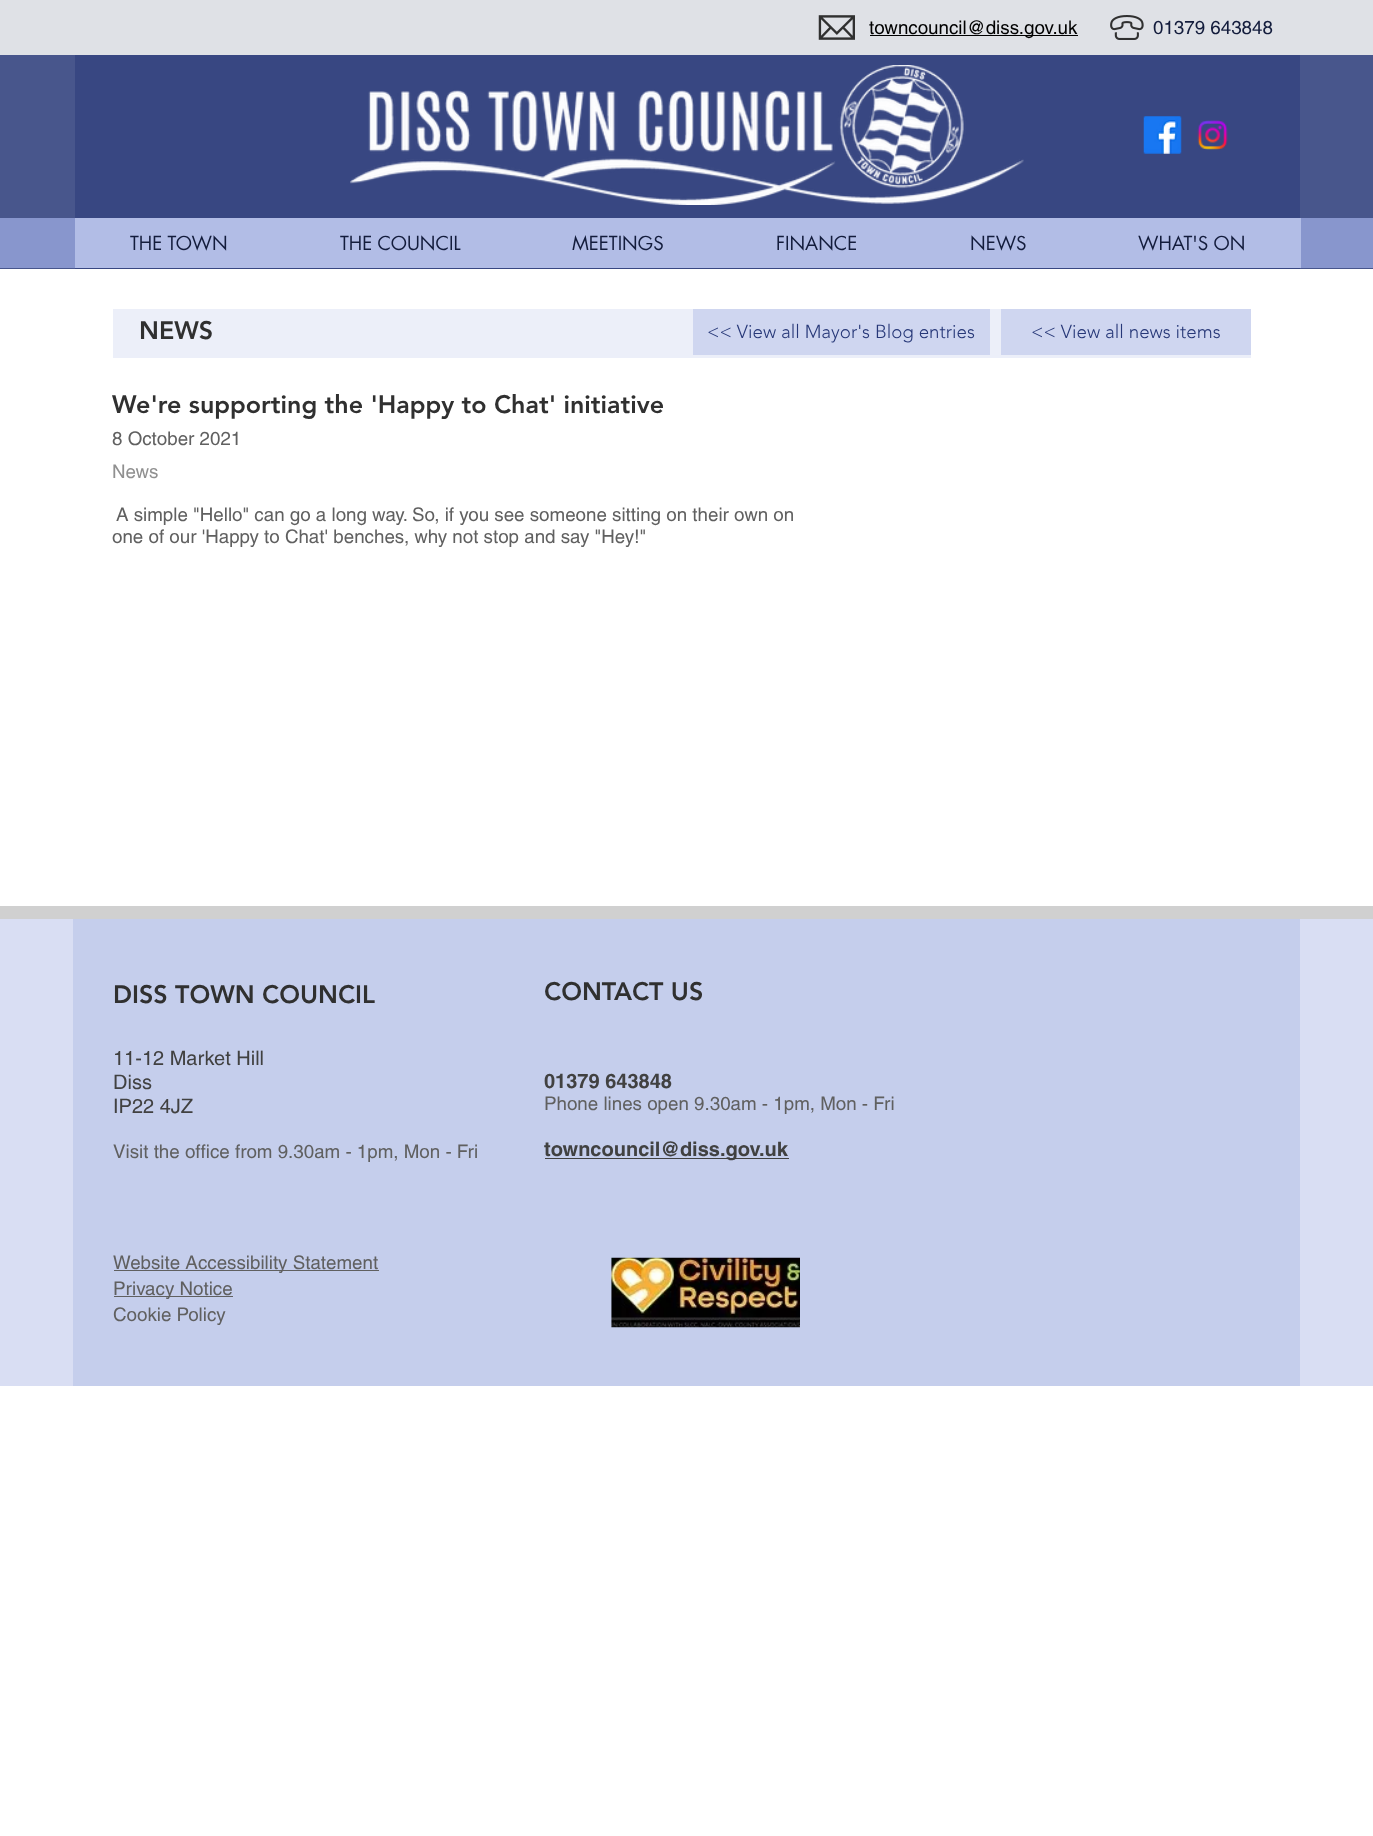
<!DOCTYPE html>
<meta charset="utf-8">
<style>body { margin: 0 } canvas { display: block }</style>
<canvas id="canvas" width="1373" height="1836"></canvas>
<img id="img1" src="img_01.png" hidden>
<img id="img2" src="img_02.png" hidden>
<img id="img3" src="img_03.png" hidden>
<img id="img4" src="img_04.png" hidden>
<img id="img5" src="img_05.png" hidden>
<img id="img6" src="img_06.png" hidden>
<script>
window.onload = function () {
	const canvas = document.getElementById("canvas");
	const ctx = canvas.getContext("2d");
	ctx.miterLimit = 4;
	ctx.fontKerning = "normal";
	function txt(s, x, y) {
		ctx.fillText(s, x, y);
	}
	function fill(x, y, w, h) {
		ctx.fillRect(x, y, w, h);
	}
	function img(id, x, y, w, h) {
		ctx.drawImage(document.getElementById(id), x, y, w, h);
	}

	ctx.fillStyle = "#FFFFFF";
	fill(0, 0, 1373, 1836);
	ctx.fillStyle = "#48568C";
	fill(0, 55, 1373, 214);
	ctx.fillStyle = "#DFE1E6";
	fill(0, 0, 1373, 55);
	img("img1", 818, 15, 37, 25);
	ctx.fillStyle = "#000000";
	fill(870, 35, 208, 1);
	img("img2", 1110, 15, 34, 25);
	ctx.fillStyle = "#384782";
	fill(75, 55, 1225, 214);
	img("img3", 350, 65, 674, 140);
	img("img4", 1143, 116, 39, 38);
	img("img5", 1197, 120, 31, 30);
	ctx.fillStyle = "#8896CD";
	fill(0, 218, 1373, 50);
	ctx.fillStyle = "#B2BDE6";
	fill(75, 218, 1226, 50);
	ctx.fillStyle = "#ECEFF9";
	fill(113, 309, 1138, 49);
	ctx.fillStyle = "#CFD6F0";
	fill(693, 309, 297, 46);
	fill(1001, 309, 250, 46);
	ctx.fillStyle = "#D0D0D0";
	fill(0, 906, 1373, 13);
	ctx.fillStyle = "#D9DEF3";
	fill(0, 919, 1373, 467);
	ctx.fillStyle = "#C5CEEC";
	fill(73, 919, 1227, 467);
	ctx.fillStyle = "#414141";
	fill(545, 1158, 244, 1);
	ctx.fillStyle = "#606060";
	fill(114, 1270, 265, 1);
	fill(114, 1296, 119, 1);
	img("img6", 611, 1257, 189, 71);
	ctx.font = "18.75px helvetica";
	ctx.fillStyle = "#000000";
	txt("towncouncil@diss.gov.uk", 869, 34);
	ctx.fillStyle = "#131C3C";
	txt("01379 643848", 1153, 34);
	ctx.font = "18.75px futura";
	txt("THE TOWN", 130, 250);
	txt("THE COUNCIL", 340, 250);
	txt("MEETINGS", 572, 250);
	txt("FINANCE", 776, 250);
	txt("NEWS", 970, 250);
	txt("WHAT'S ON", 1138, 250);
	ctx.font = "900 25px 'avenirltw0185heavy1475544'";
	ctx.fillStyle = "#303030";
	txt("NEWS", 139, 339);
	ctx.font = "300 18.75px 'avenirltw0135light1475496'";
	ctx.fillStyle = "#273878";
	txt("<< View all Mayor's Blog entries", 707, 338);
	txt("<< View all news items", 1031, 338);
	ctx.font = "900 25px 'avenirltw0185heavy1475544'";
	ctx.fillStyle = "#303030";
	txt("We're supporting the 'Happy to Chat' initiative", 112, 413);
	ctx.font = "18.75px helvetica";
	ctx.fillStyle = "#606060";
	txt("8 October 2021", 112, 445);
	ctx.fillStyle = "#909090";
	txt("News", 112, 478);
	ctx.fillStyle = "#606060";
	txt("A simple \"Hello\" can go a long way. So, if you see someone sitting on their own on", 116, 521);
	txt("one of our 'Happy to Chat' benches, why not stop and say \"Hey!\"", 112, 543);
	ctx.font = "900 25px 'avenirltw0185heavy1475544'";
	ctx.fillStyle = "#303030";
	txt("DISS TOWN COUNCIL", 113, 1003);
	txt("CONTACT US", 544, 1000);
	ctx.font = "20px helvetica";
	ctx.fillStyle = "#414141";
	txt("11-12 Market Hill", 113, 1065);
	txt("Diss", 113, 1089);
	txt("IP22 4JZ", 113, 1113);
	ctx.font = "18.75px helvetica";
	ctx.fillStyle = "#606060";
	txt("Visit the office from 9.30am - 1pm, Mon - Fri", 113, 1158);
	ctx.font = "bold 20px helvetica";
	ctx.fillStyle = "#414141";
	txt("01379 643848", 544, 1088);
	ctx.font = "18.75px helvetica";
	ctx.fillStyle = "#606060";
	txt("Phone lines open 9.30am - 1pm, Mon - Fri", 544, 1110);
	ctx.font = "bold 20px helvetica";
	ctx.fillStyle = "#414141";
	txt("towncouncil@diss.gov.uk", 544, 1156);
	ctx.font = "18.75px helvetica";
	ctx.fillStyle = "#606060";
	txt("Website Accessibility Statement", 113, 1269);
	txt("Privacy Notice", 113, 1295);
	txt("Cookie Policy", 113, 1321);
};
</script>
